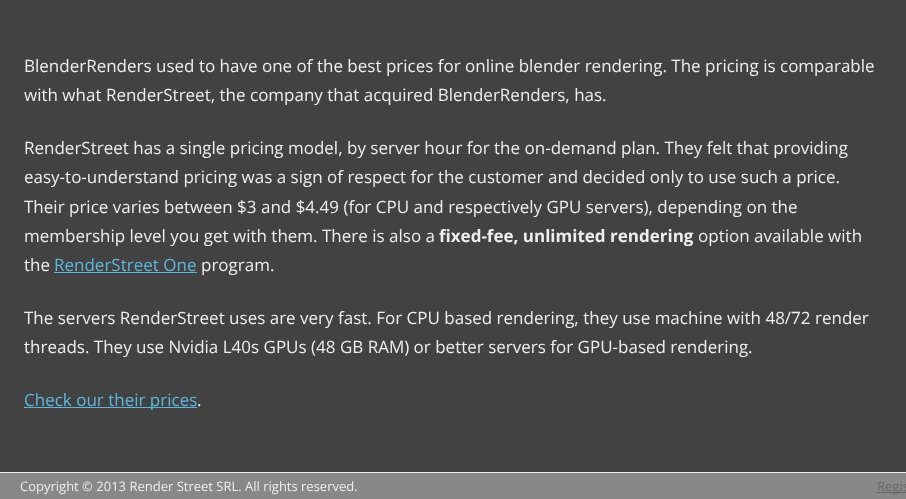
<!DOCTYPE html>
<meta charset="utf-8">
<style>body { margin: 0 } canvas { display: block }</style>
<canvas id="canvas" width="906" height="499"></canvas>
<script>
window.onload = function () {
	const canvas = document.getElementById("canvas");
	const ctx = canvas.getContext("2d");
	ctx.miterLimit = 4;
	ctx.fontKerning = "normal";
	function txt(s, x, y) {
		ctx.fillText(s, x, y);
	}
	function fill(x, y, w, h) {
		ctx.fillRect(x, y, w, h);
	}

	ctx.fillStyle = "#424242";
	fill(0, 0, 906, 499);
	ctx.fillStyle = "#5EB7DD";
	fill(54, 272, 143, 1);
	fill(24, 407, 173, 1);
	ctx.fillStyle = "#888888";
	fill(0, 473, 906, 26);
	ctx.fillStyle = "#EDEDED";
	fill(0, 472, 906, 1);
	ctx.fillStyle = "#686868";
	fill(877, 492, 29, 1);
	ctx.font = "17px Open Sans";
	ctx.fillStyle = "#EEEEEE";
	txt("BlenderRenders used to have one of the best prices for online blender rendering. The pricing is comparable", 24, 72);
	txt("with what RenderStreet, the company that acquired BlenderRenders, has.", 24, 101);
	txt("RenderStreet has a single pricing model, by server hour for the on-demand plan. They felt that providing", 24, 154);
	txt("easy-to-understand pricing was a sign of respect for the customer and decided only to use such a price.", 24, 183);
	txt("Their price varies between $3 and $4.49 (for CPU and respectively GPU servers), depending on the", 24, 213);
	txt("membership level you get with them. There is also a", 24, 242);
	ctx.font = "bold 17px Open Sans";
	txt("fixed-fee, unlimited rendering", 439, 242);
	ctx.font = "17px Open Sans";
	txt("option available with", 698, 242);
	txt("the", 24, 271);
	ctx.fillStyle = "#5EB7DD";
	txt("RenderStreet One", 54, 271);
	ctx.fillStyle = "#EEEEEE";
	txt("program.", 201, 271);
	txt("The servers RenderStreet uses are very fast. For CPU based rendering, they use machine with 48/72 render", 24, 324);
	txt("threads. They use Nvidia L40s GPUs (48 GB RAM) or better servers for GPU-based rendering.", 24, 353);
	ctx.fillStyle = "#5EB7DD";
	txt("Check our their prices", 24, 406);
	ctx.fillStyle = "#EEEEEE";
	txt(".", 197, 406);
	ctx.font = "13px Open Sans";
	txt("Copyright © 2013 Render Street SRL. All rights reserved.", 20, 491);
	ctx.fillStyle = "#686868";
	txt("Regis", 877, 491);
};
</script>
